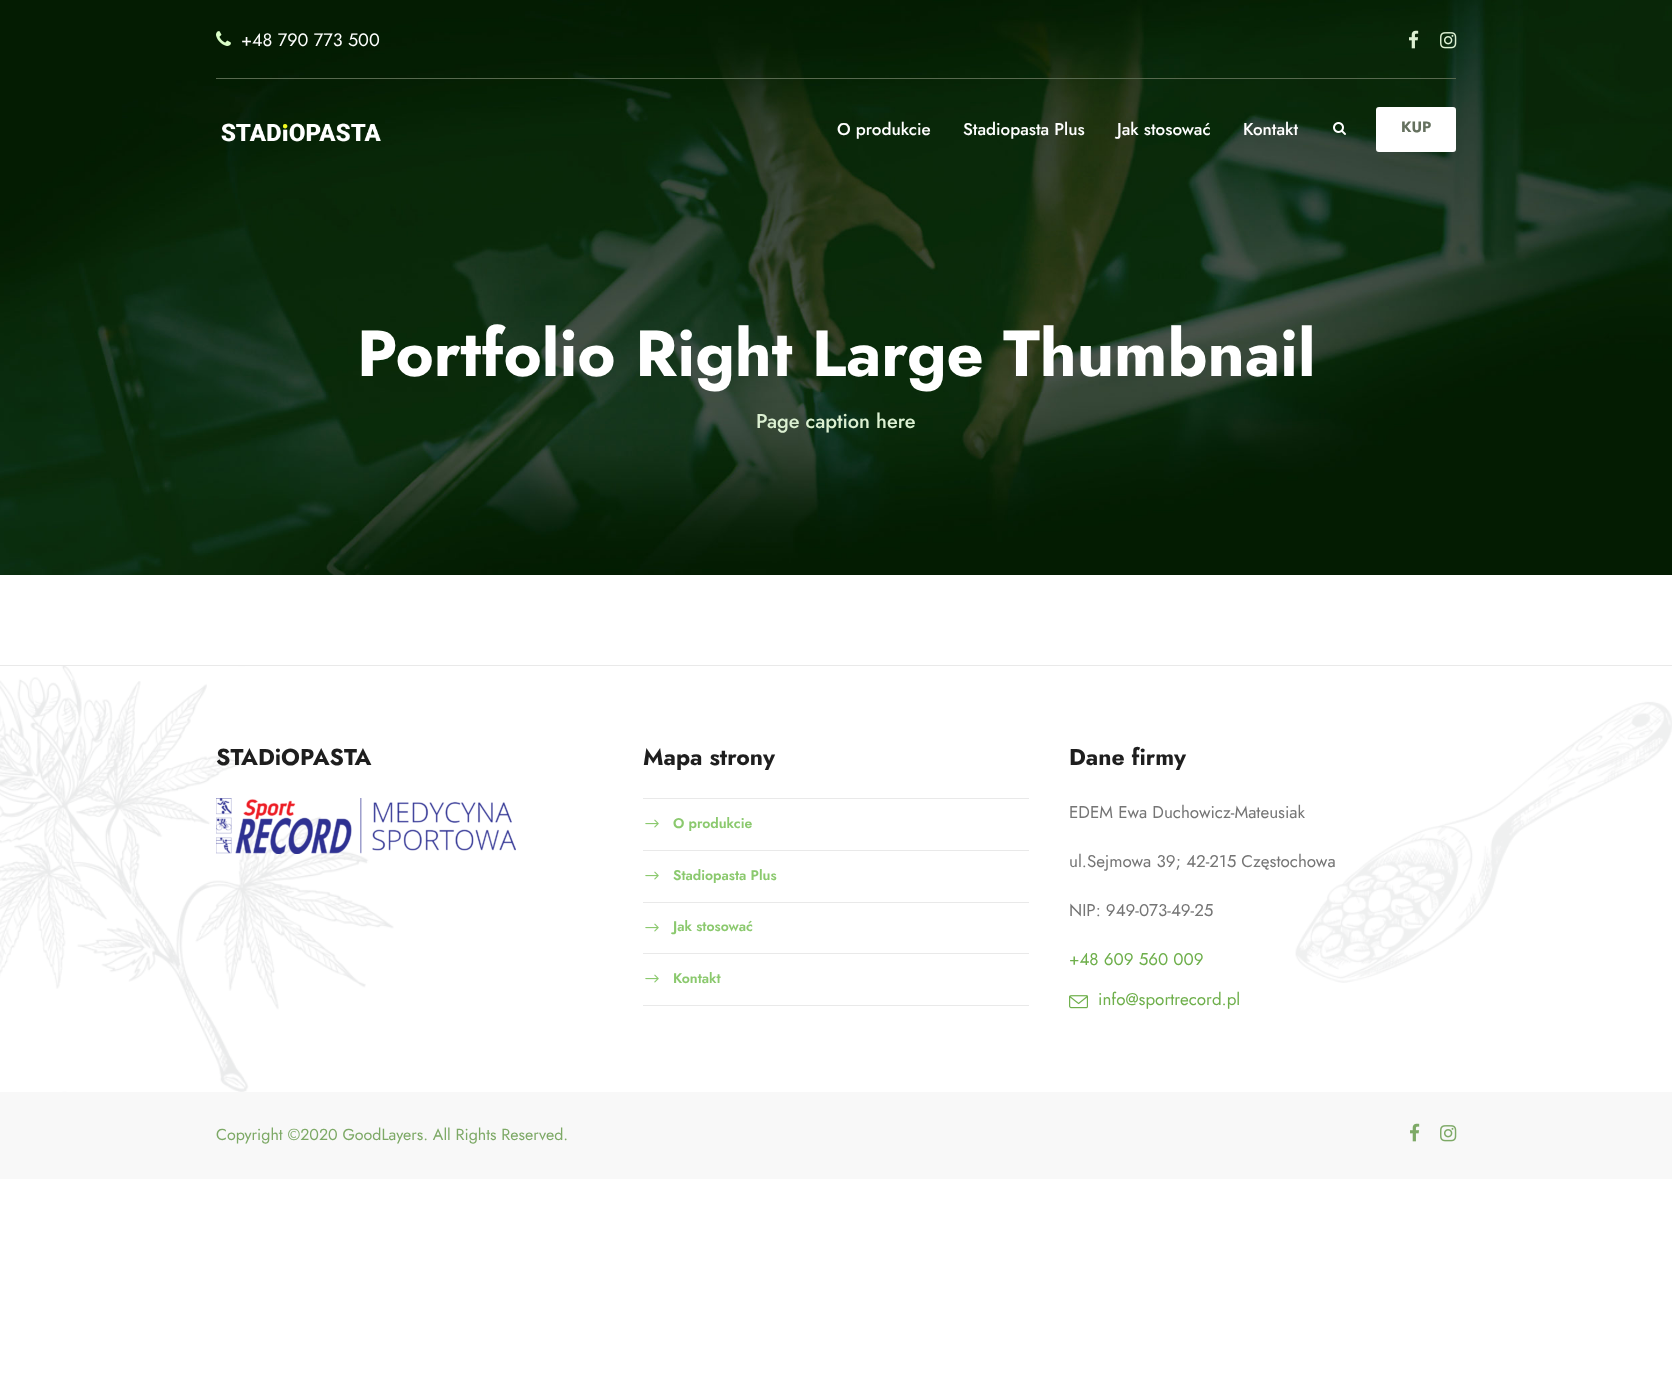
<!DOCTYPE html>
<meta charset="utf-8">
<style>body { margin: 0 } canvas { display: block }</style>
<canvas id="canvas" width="1672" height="1374"></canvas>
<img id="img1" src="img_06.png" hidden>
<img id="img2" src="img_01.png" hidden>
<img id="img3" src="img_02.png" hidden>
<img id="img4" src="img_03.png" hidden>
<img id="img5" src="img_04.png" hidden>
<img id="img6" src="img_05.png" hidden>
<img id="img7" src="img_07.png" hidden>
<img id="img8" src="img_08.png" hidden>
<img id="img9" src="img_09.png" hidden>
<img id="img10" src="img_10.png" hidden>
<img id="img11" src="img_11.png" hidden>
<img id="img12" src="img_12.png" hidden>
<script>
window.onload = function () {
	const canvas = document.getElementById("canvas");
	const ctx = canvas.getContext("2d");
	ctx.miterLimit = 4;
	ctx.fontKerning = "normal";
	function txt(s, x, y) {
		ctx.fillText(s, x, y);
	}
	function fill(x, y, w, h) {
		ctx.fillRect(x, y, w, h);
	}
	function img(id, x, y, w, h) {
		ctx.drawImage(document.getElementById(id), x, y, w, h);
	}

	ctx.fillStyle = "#FFFFFF";
	fill(0, 0, 1672, 1374);
	img("img1", 0, 0, 1672, 575);
	img("img2", 216, 31, 15, 15);
	img("img3", 1409, 30, 10, 19);
	img("img4", 1440, 32, 17, 17);
	ctx.fillStyle = "#58694F";
	fill(216, 78, 1240, 1);
	img("img5", 221, 123, 160, 19);
	img("img6", 1333, 122, 13, 13);
	ctx.fillStyle = "#FFFFFF";
	ctx.beginPath();
	ctx.roundRect(1377, 108, 78, 43, 2);
	ctx.fill();
	ctx.strokeStyle = "#FFFFFF";
	ctx.lineWidth = 2;
	ctx.stroke();
	img("img7", 0, 666, 1672, 426);
	ctx.fillStyle = "#E9E9E9";
	fill(0, 665, 1672, 1);
	img("img8", 216, 798, 300, 56);
	fill(643, 798, 386, 1);
	fill(643, 850, 386, 1);
	img("img9", 645, 819, 14, 9);
	fill(643, 902, 386, 1);
	img("img9", 645, 871, 14, 9);
	fill(643, 953, 386, 1);
	img("img9", 645, 923, 14, 9);
	fill(643, 1005, 386, 1);
	img("img9", 645, 974, 14, 9);
	img("img10", 1069, 995, 19, 14);
	ctx.fillStyle = "#F8F8F8";
	fill(0, 1092, 1672, 87);
	img("img11", 1410, 1123, 10, 19);
	img("img12", 1440, 1125, 17, 17);
	ctx.font = "18px Jost";
	ctx.fillStyle = "#FFFFFF";
	txt("+48 790 773 500", 241, 46);
	ctx.font = "500 17px Jost";
	txt("O produkcie", 837, 135);
	txt("Stadiopasta Plus", 963, 135);
	txt("Jak stosować", 1117, 135);
	txt("Kontakt", 1243, 135);
	ctx.font = "bold 15px Jost";
	ctx.fillStyle = "#65715F";
	txt("KUP", 1401, 132);
	ctx.font = "bold 65px Jost";
	ctx.fillStyle = "#FFFFFF";
	txt("Portfolio Right Large Thumbnail", 357, 376);
	ctx.font = "500 20px Jost";
	ctx.fillStyle = "#DCF0D2";
	txt("Page caption here", 756, 428);
	ctx.font = "bold 23px Jost";
	ctx.fillStyle = "#1E1E1E";
	txt("STADiOPASTA", 216, 765);
	txt("Mapa strony", 643, 765);
	ctx.font = "600 14px Jost";
	ctx.fillStyle = "#8BC96E";
	txt("O produkcie", 673, 828);
	txt("Stadiopasta Plus", 673, 880);
	txt("Jak stosować", 673, 931);
	txt("Kontakt", 673, 983);
	ctx.font = "bold 23px Jost";
	ctx.fillStyle = "#1E1E1E";
	txt("Dane firmy", 1069, 765);
	ctx.font = "17px Jost";
	ctx.fillStyle = "#757575";
	txt("EDEM Ewa Duchowicz-Mateusiak", 1069, 818);
	txt("ul.Sejmowa 39; 42-215 Częstochowa", 1069, 867);
	txt("NIP: 949-073-49-25", 1069, 916);
	ctx.fillStyle = "#6EAF4B";
	txt("+48 609 560 009", 1069, 965);
	txt("info@sportrecord.pl", 1098, 1005);
	ctx.font = "16px Jost";
	ctx.fillStyle = "#7DA966";
	txt("Copyright ©2020 GoodLayers. All Rights Reserved.", 216, 1140);
};
</script>
